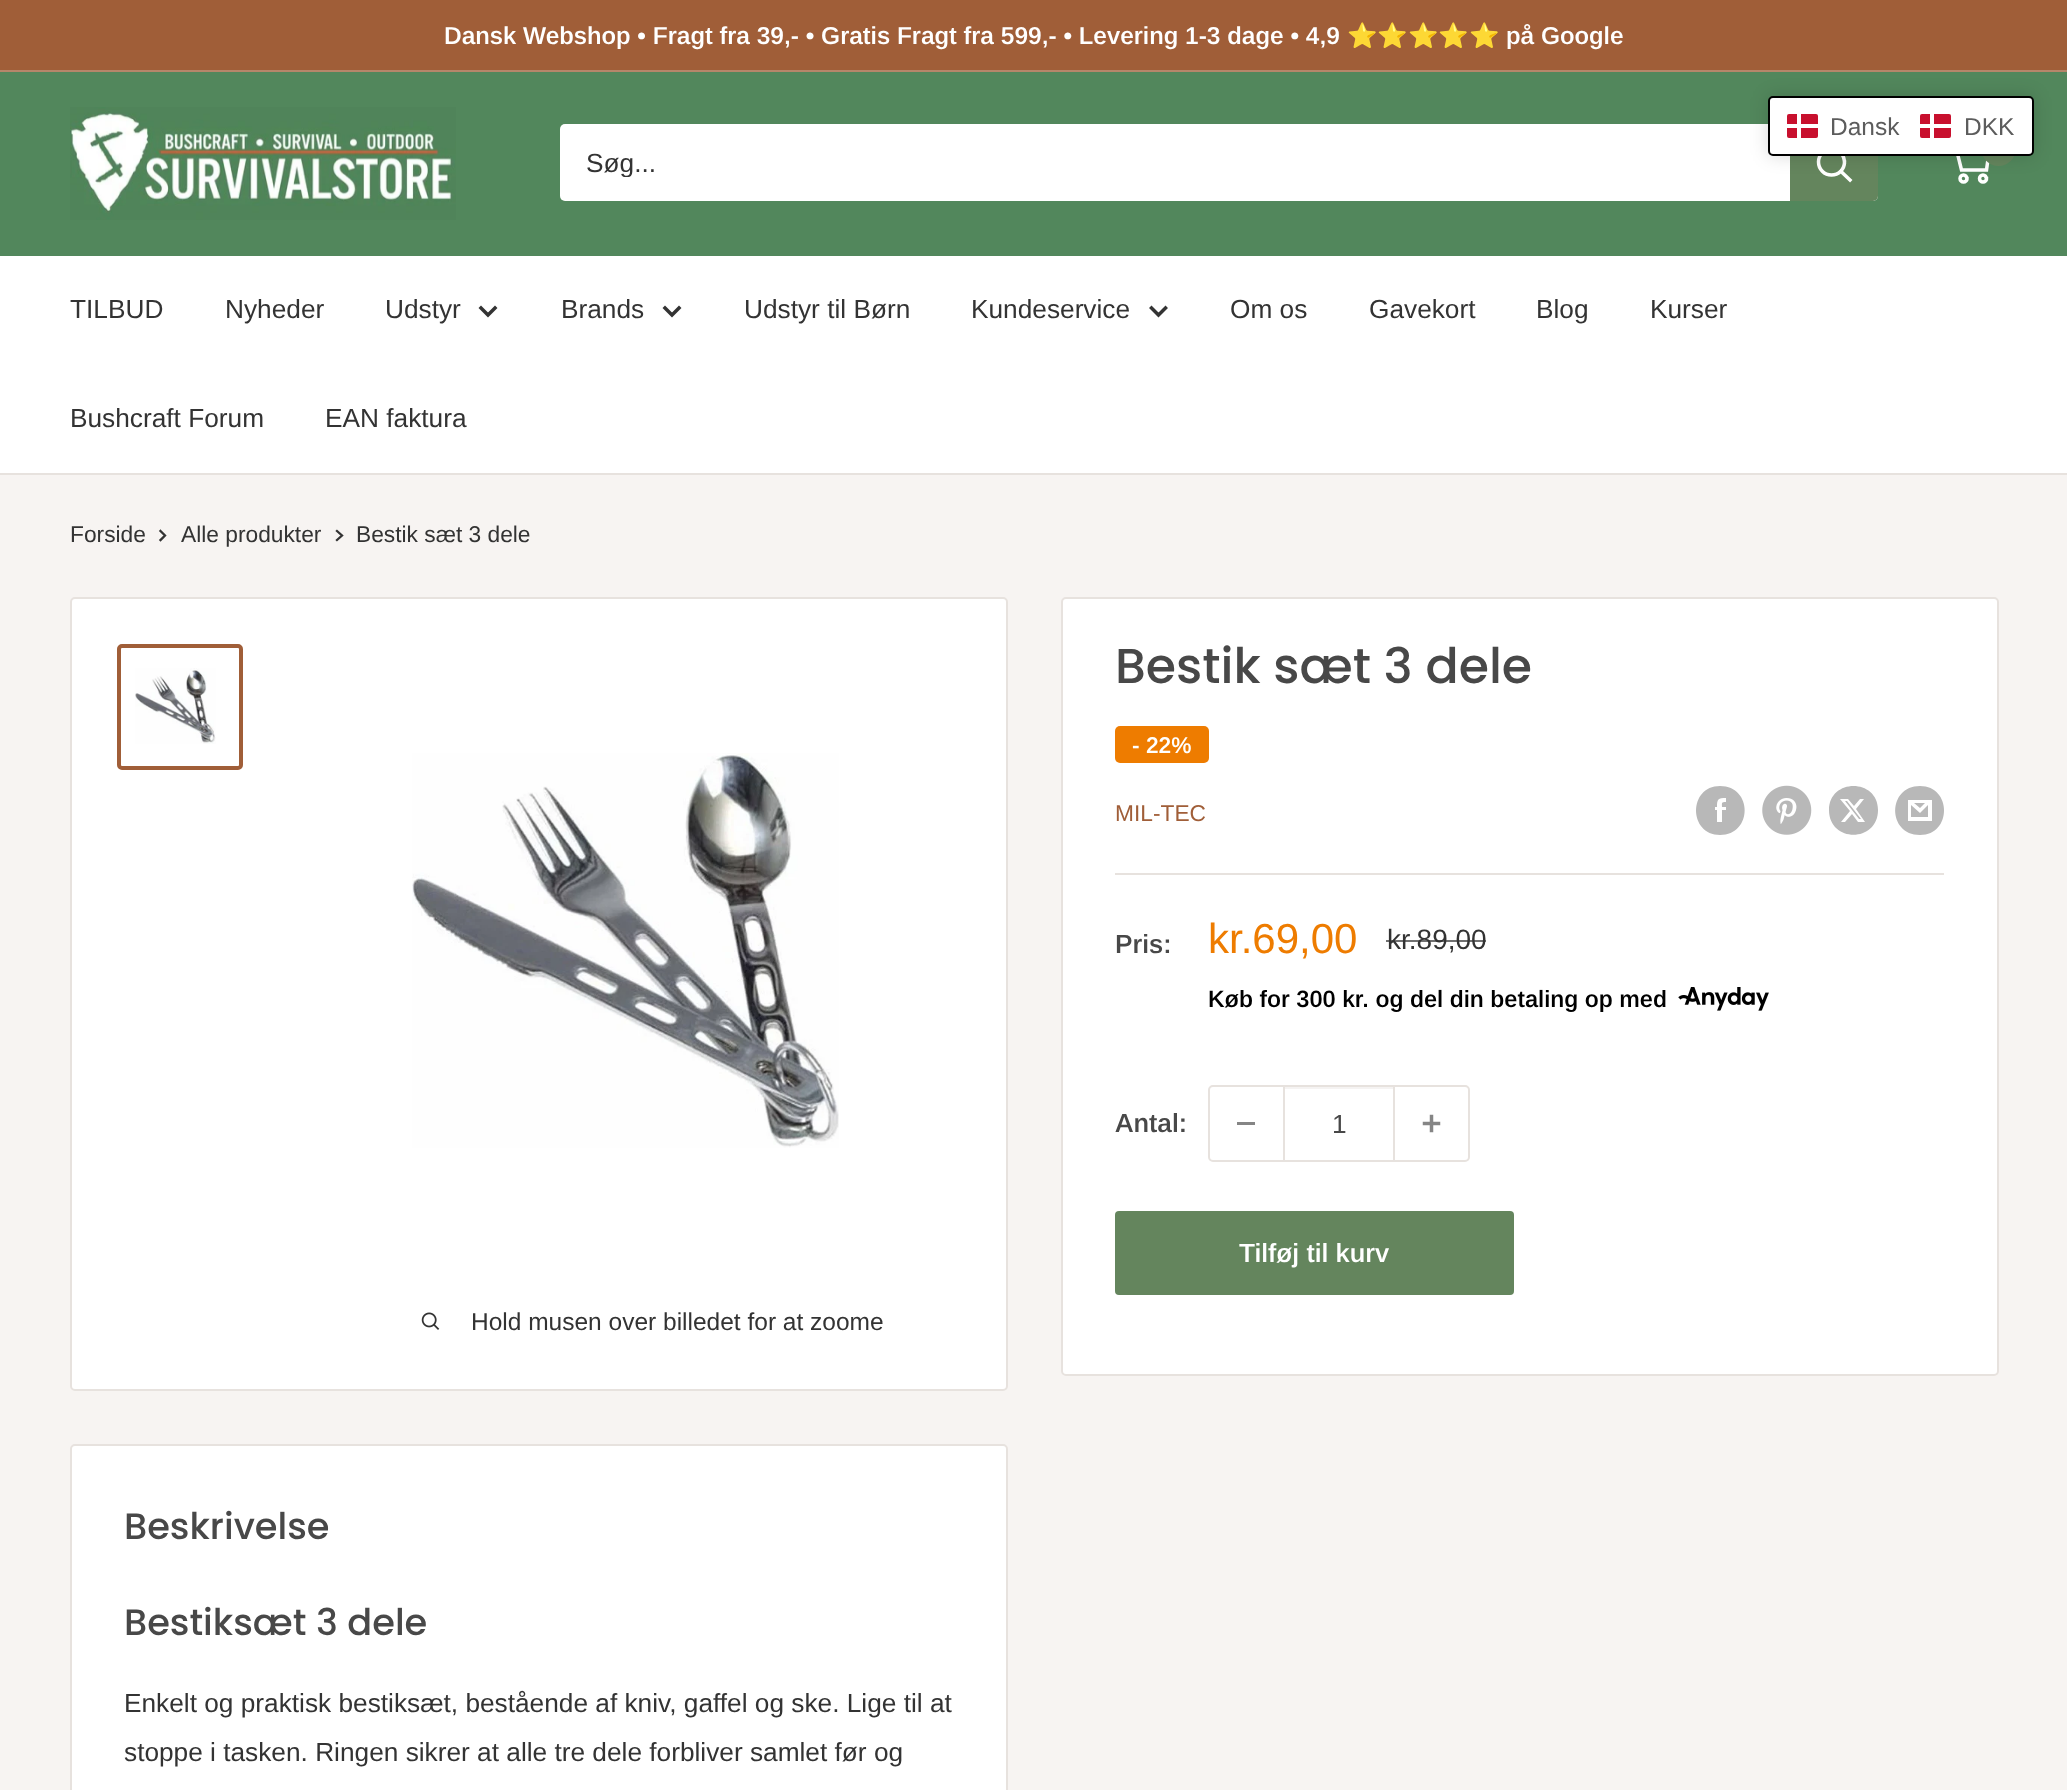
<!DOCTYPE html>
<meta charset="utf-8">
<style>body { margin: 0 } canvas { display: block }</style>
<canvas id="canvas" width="2067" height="1790"></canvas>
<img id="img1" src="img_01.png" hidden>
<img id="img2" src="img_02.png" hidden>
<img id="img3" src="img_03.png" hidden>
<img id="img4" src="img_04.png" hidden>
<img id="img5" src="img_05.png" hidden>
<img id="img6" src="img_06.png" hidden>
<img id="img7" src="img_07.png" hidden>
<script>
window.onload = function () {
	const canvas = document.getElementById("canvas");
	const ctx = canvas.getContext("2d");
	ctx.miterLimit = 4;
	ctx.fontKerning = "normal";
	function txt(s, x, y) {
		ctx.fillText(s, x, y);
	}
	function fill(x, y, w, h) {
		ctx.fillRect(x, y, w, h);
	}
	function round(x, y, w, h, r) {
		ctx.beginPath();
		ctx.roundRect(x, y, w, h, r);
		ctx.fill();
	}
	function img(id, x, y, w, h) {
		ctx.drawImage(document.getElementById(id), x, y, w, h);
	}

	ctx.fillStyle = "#F7F4F2";
	fill(0, 0, 2067, 1790);
	ctx.fillStyle = "#A05E38";
	fill(0, 0, 2067, 70);
	ctx.fillStyle = "#B6866A";
	fill(0, 70, 2067, 2);
	ctx.fillStyle = "#52875C";
	fill(0, 72, 2067, 184);
	ctx.fillStyle = "#FFFFFF";
	round(560, 124, 1318, 77, 5);
	ctx.fillStyle = "#64855D";
	ctx.beginPath();
	ctx.roundRect(1790, 124, 88, 77, [0, 5, 5, 0]);
	ctx.fill();
	ctx.beginPath();
	ctx.moveTo(1850, 180);
	ctx.lineTo(1841, 171.5);
	ctx.strokeStyle = "#FFFFFF";
	ctx.lineWidth = 3.5;
	ctx.lineCap = "square";
	ctx.stroke();
	ctx.beginPath();
	ctx.arc(1831.5, 162, 13, 0, Math.PI * 2);
	ctx.stroke();
	ctx.beginPath();
	ctx.arc(1963.5, 178.5, 3.5, 0, Math.PI * 2);
	ctx.stroke();
	ctx.beginPath();
	ctx.arc(1983, 178.5, 3.5, 0, Math.PI * 2);
	ctx.stroke();
	ctx.beginPath();
	ctx.moveTo(1957, 152);
	ctx.lineTo(1989, 152);
	ctx.lineTo(1986.5, 170);
	ctx.lineTo(1961.5, 170);
	ctx.lineTo(1955, 143.5);
	ctx.lineTo(1944, 143.5);
	ctx.lineCap = "butt";
	ctx.stroke();
	round(1981, 130, 35, 36, 17.5);
	ctx.fillStyle = "rgba(0, 0, 0, 0.15)";
	ctx.filter = "blur(9px)";
	ctx.beginPath();
	ctx.roundRect(1768, 96, 266, 60, 5);
	ctx.fill();
	ctx.filter = "none";
	ctx.fillStyle = "#FFFFFF";
	ctx.beginPath();
	ctx.roundRect(1769, 97, 264, 58, 4);
	ctx.fill();
	ctx.strokeStyle = "#000000";
	ctx.lineWidth = 2;
	ctx.stroke();
	ctx.fillStyle = "#C8102E";
	round(1787, 114, 31, 24, 2);
	ctx.fillStyle = "#FFFFFF";
	fill(1797, 114, 4, 24);
	fill(1787, 124, 31, 4);
	ctx.fillStyle = "#C8102E";
	round(1920, 114, 31, 24, 2);
	ctx.fillStyle = "#FFFFFF";
	fill(1930, 114, 4, 24);
	fill(1920, 124, 31, 4);
	img("img1", 70, 107, 386, 113);
	fill(0, 256, 2067, 217);
	ctx.fillStyle = "#E7E2DE";
	fill(0, 473, 2067, 2);
	ctx.beginPath();
	ctx.moveTo(495, 308);
	ctx.lineTo(488, 315);
	ctx.lineTo(481, 308);
	ctx.strokeStyle = "#333333";
	ctx.lineWidth = 3.5;
	ctx.lineCap = "square";
	ctx.stroke();
	ctx.beginPath();
	ctx.moveTo(679, 308);
	ctx.lineTo(672, 315);
	ctx.lineTo(665, 308);
	ctx.stroke();
	ctx.beginPath();
	ctx.moveTo(1165.5, 308);
	ctx.lineTo(1158.5, 315);
	ctx.lineTo(1151.5, 308);
	ctx.stroke();
	ctx.beginPath();
	ctx.moveTo(160.5, 531);
	ctx.lineTo(165, 535.5);
	ctx.lineTo(160.5, 540);
	ctx.lineWidth = 2.3;
	ctx.stroke();
	ctx.beginPath();
	ctx.moveTo(337, 531);
	ctx.lineTo(342, 535.5);
	ctx.lineTo(337, 540);
	ctx.stroke();
	ctx.fillStyle = "#FFFFFF";
	ctx.beginPath();
	ctx.roundRect(1062, 598, 936, 777, 4);
	ctx.fill();
	ctx.strokeStyle = "#E7E2DE";
	ctx.lineWidth = 2;
	ctx.stroke();
	ctx.fillStyle = "#EE7C00";
	round(1115, 726, 94, 37, 5);
	ctx.fillStyle = "#B8B8B8";
	ctx.beginPath();
	ctx.moveTo(1720, 835);
	ctx.bezierCurveTo(1688, 835, 1688, 786, 1720, 786);
	ctx.bezierCurveTo(1753, 786, 1753, 835, 1720, 835);
	ctx.closePath();
	ctx.moveTo(1726, 807);
	ctx.lineTo(1722, 807);
	ctx.bezierCurveTo(1722, 803, 1721, 802, 1726, 802);
	ctx.lineTo(1726, 798);
	ctx.bezierCurveTo(1718, 798, 1717, 799, 1717, 807);
	ctx.lineTo(1715, 807);
	ctx.lineTo(1715, 810);
	ctx.lineTo(1717, 810);
	ctx.lineTo(1717, 822);
	ctx.lineTo(1722, 822);
	ctx.lineTo(1722, 810);
	ctx.lineTo(1726, 810);
	ctx.closePath();
	ctx.fill("evenodd");
	img("img2", 1762, 785, 50, 50);
	ctx.beginPath();
	ctx.moveTo(1878, 810);
	ctx.bezierCurveTo(1878, 843, 1829, 843, 1829, 810);
	ctx.bezierCurveTo(1829, 778, 1878, 778, 1878, 810);
	ctx.closePath();
	ctx.moveTo(1864, 799);
	ctx.lineTo(1860, 799);
	ctx.lineTo(1854, 806);
	ctx.lineTo(1848, 799);
	ctx.lineTo(1840, 799);
	ctx.lineTo(1850, 811);
	ctx.lineTo(1841, 822);
	ctx.lineTo(1845, 822);
	ctx.lineTo(1852, 814);
	ctx.lineTo(1858, 822);
	ctx.lineTo(1865, 822);
	ctx.lineTo(1856, 809);
	ctx.closePath();
	ctx.moveTo(1861, 819);
	ctx.lineTo(1859, 819);
	ctx.lineTo(1845, 801);
	ctx.lineTo(1847, 801);
	ctx.closePath();
	ctx.fill("evenodd");
	ctx.beginPath();
	ctx.moveTo(1920, 835);
	ctx.bezierCurveTo(1887, 835, 1887, 786, 1920, 786);
	ctx.bezierCurveTo(1952, 786, 1952, 835, 1920, 835);
	ctx.closePath();
	ctx.moveTo(1914, 803);
	ctx.lineTo(1925, 803);
	ctx.lineTo(1920, 808);
	ctx.closePath();
	ctx.moveTo(1928, 805);
	ctx.lineTo(1928, 817);
	ctx.lineTo(1911, 817);
	ctx.lineTo(1911, 805);
	ctx.lineTo(1920, 813);
	ctx.closePath();
	ctx.moveTo(1932, 800);
	ctx.lineTo(1908, 800);
	ctx.lineTo(1908, 821);
	ctx.lineTo(1932, 821);
	ctx.closePath();
	ctx.fill();
	ctx.fillStyle = "#E7E2DE";
	fill(1115, 873, 829, 2);
	img("img3", 1678, 987, 91, 24);
	ctx.beginPath();
	ctx.roundRect(1209, 1086, 260, 75, 4);
	ctx.stroke();
	ctx.fillStyle = "#858585";
	fill(1237, 1122, 18, 3);
	ctx.fillStyle = "#F5F3F2";
	fill(1285, 1087, 108, 2);
	ctx.fillStyle = "#E7E2DE";
	fill(1393, 1087, 2, 73);
	fill(1283, 1087, 2, 73);
	img("img4", 1422, 1114, 19, 19);
	ctx.fillStyle = "#64855D";
	round(1115, 1211, 399, 84, 4);
	ctx.fillStyle = "#FFFFFF";
	ctx.beginPath();
	ctx.roundRect(71, 598, 936, 792, 4);
	ctx.fill();
	ctx.stroke();
	ctx.beginPath();
	ctx.roundRect(119, 646, 122, 122, 3);
	ctx.strokeStyle = "#A05E38";
	ctx.lineWidth = 4;
	ctx.stroke();
	img("img5", 135, 668, 81, 76);
	img("img6", 412, 753, 427, 395);
	img("img7", 421, 1312, 19, 18);
	ctx.beginPath();
	ctx.roundRect(71, 1445, 936, 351, 4);
	ctx.fill();
	ctx.strokeStyle = "#E7E2DE";
	ctx.lineWidth = 2;
	ctx.stroke();
	ctx.font = "600 24.5px Arimo";
	txt("Dansk Webshop • Fragt fra 39,- • Gratis Fragt fra 599,- • Levering 1-3 dage • 4,9", 444, 44);
	ctx.font = "bold 24.5px Noto Color Emoji";
	txt("⭐️⭐️⭐️⭐️⭐️", 1347, 44);
	ctx.font = "600 24.5px Arimo";
	txt("på Google", 1506, 44);
	ctx.font = "24.5px Arimo";
	ctx.fillStyle = "#5C5C5C";
	txt("Dansk", 1830, 135);
	txt("DKK", 1964, 135);
	ctx.save();
	ctx.beginPath();
	ctx.rect(586, 147, 1178, 30);
	ctx.clip();
	ctx.font = "26.25px Arimo";
	ctx.fillStyle = "#333333";
	txt("Søg...", 586, 172);
	ctx.restore();
	ctx.font = "26.25px Arimo";
	ctx.fillStyle = "#333333";
	txt("TILBUD", 70, 318);
	txt("Nyheder", 225, 318);
	txt("Udstyr", 385, 318);
	txt("Brands", 561, 318);
	txt("Udstyr til Børn", 744, 318);
	txt("Kundeservice", 971, 318);
	txt("Om os", 1230, 318);
	txt("Gavekort", 1369, 318);
	txt("Blog", 1536, 318);
	txt("Kurser", 1650, 318);
	txt("Bushcraft Forum", 70, 427);
	txt("EAN faktura", 325, 427);
	ctx.font = "22.75px Arimo";
	txt("Forside", 70, 542);
	txt("Alle produkter", 181, 542);
	txt("Bestik sæt 3 dele", 356, 542);
	ctx.font = "500 49px Poppins";
	ctx.fillStyle = "#484848";
	txt("Bestik sæt 3 dele", 1115, 683);
	ctx.font = "600 22.75px Arimo";
	ctx.fillStyle = "#FFFFFF";
	txt("- 22%", 1132, 753);
	ctx.font = "22.75px Arimo";
	ctx.fillStyle = "#A05E38";
	txt("MIL-TEC", 1115, 821);
	ctx.font = "600 26.25px Arimo";
	ctx.fillStyle = "#484848";
	txt("Pris:", 1115, 953);
	ctx.font = "42px Arimo";
	ctx.fillStyle = "#EE7C00";
	txt("kr.69,00", 1208, 953);
	ctx.font = "28px Arimo";
	ctx.fillStyle = "#333333";
	txt("kr.89,00", 1387, 949);
	ctx.fillStyle = "rgba(51, 51, 51, 0.7)";
	fill(1386, 940, 100, 2);
	ctx.font = "600 23.6px Arimo";
	ctx.fillStyle = "#000000";
	txt("Køb for 300 kr. og del din betaling op med", 1208, 1007);
	ctx.font = "600 26.25px Arimo";
	ctx.fillStyle = "#484848";
	txt("Antal:", 1115, 1132);
	ctx.font = "26.25px Arimo";
	txt("1", 1332, 1133);
	ctx.font = "600 26.25px Arimo";
	ctx.fillStyle = "#FFFFFF";
	txt("Tilføj til kurv", 1239, 1262);
	ctx.font = "24.5px Arimo";
	ctx.fillStyle = "#333333";
	txt("Hold musen over billedet for at zoome", 471, 1330);
	ctx.font = "500 36.75px Poppins";
	ctx.fillStyle = "#484848";
	txt("Beskrivelse", 124, 1539);
	txt("Bestiksæt 3 dele", 124, 1635);
	ctx.font = "26.25px Arimo";
	ctx.fillStyle = "#333333";
	txt("Enkelt og praktisk bestiksæt, bestående af kniv, gaffel og ske. Lige til at", 124, 1712);
	txt("stoppe i tasken. Ringen sikrer at alle tre dele forbliver samlet før og", 124, 1761);
};
</script>
